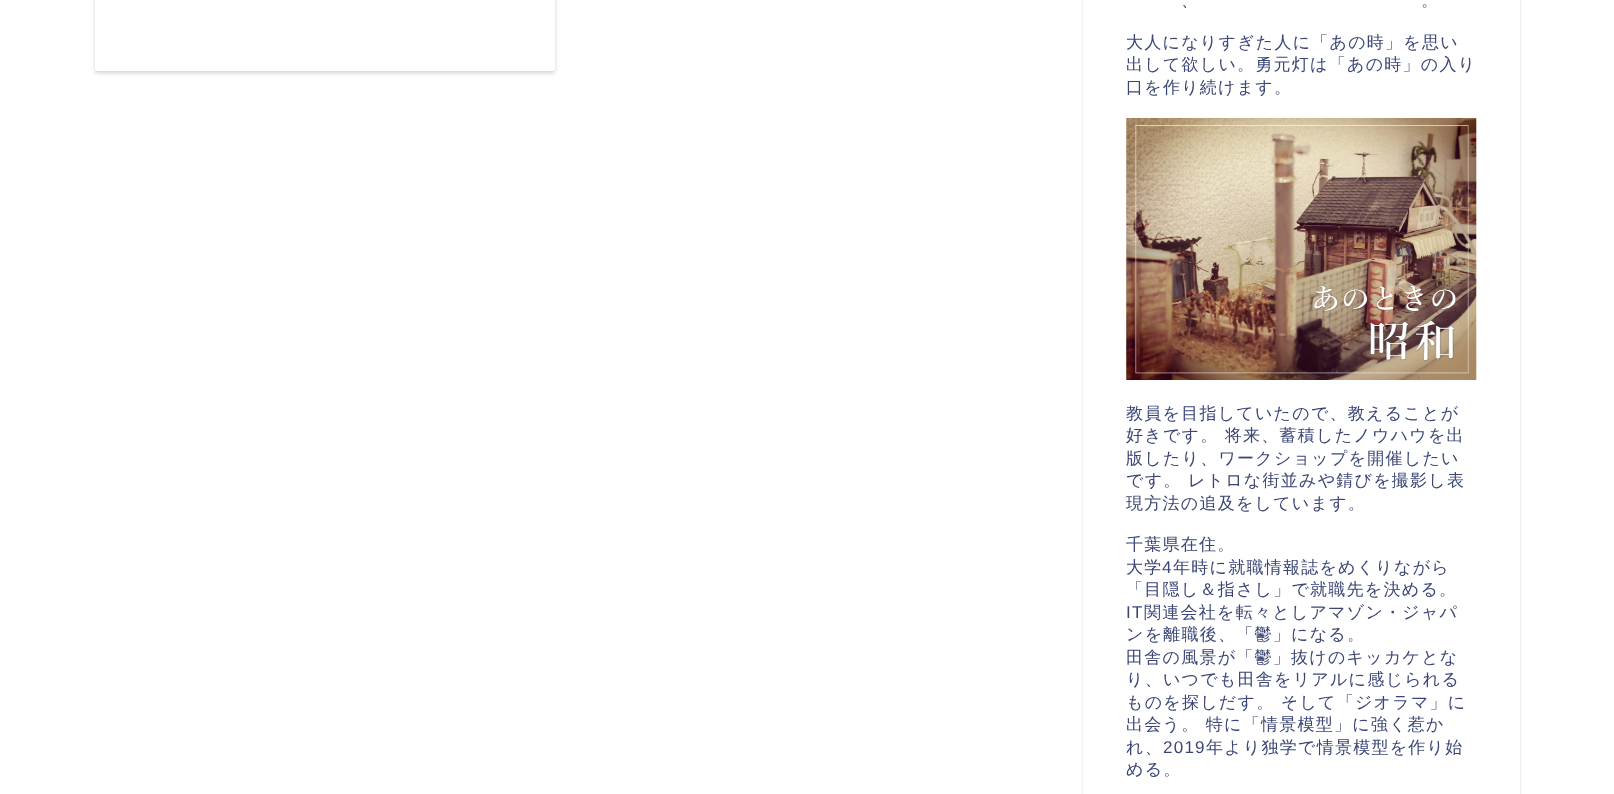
<!DOCTYPE html>
<meta charset="utf-8">
<style>body { margin: 0 } canvas { display: block }</style>
<canvas id="canvas" width="1614" height="794"></canvas>
<img id="img1" src="img_01.png" hidden>
<script>
window.onload = function () {
	const canvas = document.getElementById("canvas");
	const ctx = canvas.getContext("2d");
	ctx.miterLimit = 4;
	ctx.fontKerning = "normal";
	function txt(s, x, y) {
		ctx.fillText(s, x, y);
	}
	function fill(x, y, w, h) {
		ctx.fillRect(x, y, w, h);
	}
	function round(x, y, w, h, r) {
		ctx.beginPath();
		ctx.roundRect(x, y, w, h, r);
		ctx.fill();
	}
	function img(id, x, y, w, h) {
		ctx.drawImage(document.getElementById(id), x, y, w, h);
	}

	ctx.fillStyle = "#FFFFFF";
	fill(0, 0, 1614, 794);
	ctx.fillStyle = "rgba(0, 0, 0, 0.18)";
	ctx.filter = "blur(2px)";
	ctx.beginPath();
	ctx.roundRect(95, -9, 460, 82, 2.5);
	ctx.fill();
	ctx.filter = "none";
	ctx.fillStyle = "#FFFFFF";
	round(95, -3, 460, 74, 2.5);
	ctx.save();
	ctx.beginPath();
	ctx.moveTo(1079, 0);
	ctx.lineTo(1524, 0);
	ctx.lineTo(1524, 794);
	ctx.lineTo(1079, 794);
	ctx.closePath();
	ctx.moveTo(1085.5, -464);
	ctx.lineTo(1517.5, -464);
	ctx.bezierCurveTo(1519, -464, 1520, -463, 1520, -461.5);
	ctx.lineTo(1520, 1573.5);
	ctx.bezierCurveTo(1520, 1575, 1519, 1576, 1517.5, 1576);
	ctx.lineTo(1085.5, 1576);
	ctx.bezierCurveTo(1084, 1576, 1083, 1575, 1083, 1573.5);
	ctx.lineTo(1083, -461.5);
	ctx.bezierCurveTo(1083, -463, 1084, -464, 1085.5, -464);
	ctx.closePath();
	ctx.clip("evenodd");
	ctx.fillStyle = "rgba(0, 0, 0, 0.18)";
	ctx.filter = "blur(1px)";
	ctx.beginPath();
	ctx.roundRect(1083, -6, 437, 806, 2.5);
	ctx.fill();
	ctx.filter = "none";
	ctx.restore();
	img("img1", 1126, 118, 351, 262);
	ctx.letterSpacing = "1.25px";
	ctx.font = "500 17px WenQuanYi Zen Hei";
	ctx.fillStyle = "#3B4675";
	txt("、", 1181, 6);
	txt("。", 1421, 6);
	txt("大人になりすぎた人に「あの時」を思い", 1126, 48);
	txt("出して欲しい。勇元灯は「あの時」の入り", 1126, 70);
	txt("口を作り続けます。", 1126, 93);
	txt("教員を目指していたので、教えることが", 1126, 419);
	txt("好きです。 将来、蓄積したノウハウを出", 1126, 441);
	txt("版したり、ワークショップを開催したい", 1126, 464);
	txt("です。 レトロな街並みや錆びを撮影し表", 1126, 486);
	txt("現方法の追及をしています。", 1126, 509);
	txt("千葉県在住。", 1126, 550);
	txt("大学", 1126, 573);
	ctx.font = "17px Liberation Sans";
	txt("4", 1162, 573);
	ctx.font = "500 17px WenQuanYi Zen Hei";
	txt("年時に就職情報誌をめくりながら", 1173, 573);
	txt("「目隠し＆指さし」で就職先を決める。", 1126, 595);
	ctx.font = "17px Liberation Sans";
	txt("IT", 1126, 618);
	ctx.font = "500 17px WenQuanYi Zen Hei";
	txt("関連会社を転々としアマゾン・ジャパ", 1144, 618);
	txt("ンを離職後、「鬱」になる。", 1126, 640);
	txt("田舎の風景が「鬱」抜けのキッカケとな", 1126, 663);
	txt("り、いつでも田舎をリアルに感じられる", 1126, 685);
	txt("ものを探しだす。 そして「ジオラマ」に", 1126, 708);
	txt("出会う。 特に「情景模型」に強く惹か", 1126, 730);
	txt("れ、", 1126, 753);
	ctx.font = "17px Liberation Sans";
	txt("2019", 1163, 753);
	ctx.font = "500 17px WenQuanYi Zen Hei";
	txt("年より独学で情景模型を作り始", 1206, 753);
	txt("める。", 1126, 775);
};
</script>
